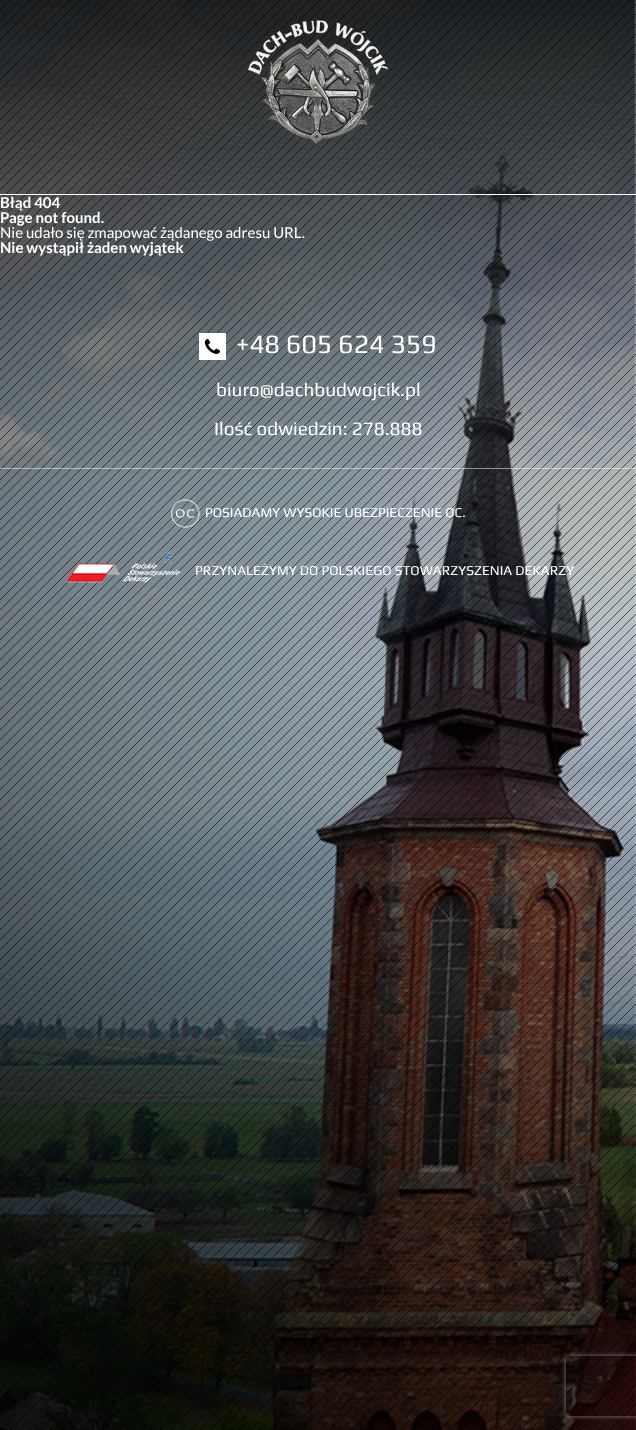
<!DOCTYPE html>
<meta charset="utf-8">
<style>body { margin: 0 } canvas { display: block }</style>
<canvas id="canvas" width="636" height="1430"></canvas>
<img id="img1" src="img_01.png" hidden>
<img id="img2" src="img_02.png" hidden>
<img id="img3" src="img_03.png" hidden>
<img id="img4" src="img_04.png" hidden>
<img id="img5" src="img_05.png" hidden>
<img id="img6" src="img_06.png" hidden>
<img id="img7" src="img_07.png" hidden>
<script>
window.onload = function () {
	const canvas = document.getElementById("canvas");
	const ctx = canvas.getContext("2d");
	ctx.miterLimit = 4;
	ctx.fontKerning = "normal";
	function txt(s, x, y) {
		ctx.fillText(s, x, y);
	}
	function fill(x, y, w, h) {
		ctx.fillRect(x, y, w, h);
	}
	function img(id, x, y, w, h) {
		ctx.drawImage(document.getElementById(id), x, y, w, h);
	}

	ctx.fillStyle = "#FFFFFF";
	fill(0, 0, 636, 1430);
	img("img1", 0, 0, 636, 1430);
	img("img2", 0, 0, 636, 1430);
	img("img3", 0, 0, 636, 1430);
	img("img4", 248, 20, 140, 124);
	fill(0, 194, 636, 1);
	ctx.fillStyle = "rgba(255, 255, 255, 0.5)";
	fill(0, 468, 636, 1);
	img("img5", 199, 333, 27, 27);
	img("img6", 171, 499, 29, 29);
	img("img7", 66, 551, 114, 32);
	ctx.save();
	ctx.beginPath();
	ctx.moveTo(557, 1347);
	ctx.lineTo(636, 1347);
	ctx.lineTo(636, 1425);
	ctx.lineTo(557, 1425);
	ctx.closePath();
	ctx.moveTo(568, 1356);
	ctx.lineTo(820, 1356);
	ctx.bezierCurveTo(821, 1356, 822, 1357, 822, 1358);
	ctx.lineTo(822, 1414);
	ctx.bezierCurveTo(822, 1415, 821, 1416, 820, 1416);
	ctx.lineTo(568, 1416);
	ctx.bezierCurveTo(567, 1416, 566, 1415, 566, 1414);
	ctx.lineTo(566, 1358);
	ctx.bezierCurveTo(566, 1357, 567, 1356, 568, 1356);
	ctx.closePath();
	ctx.clip("evenodd");
	ctx.fillStyle = "#808080";
	ctx.filter = "blur(2.5px)";
	ctx.beginPath();
	ctx.roundRect(566, 1356, 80, 60, 2);
	ctx.fill();
	ctx.filter = "none";
	ctx.restore();
	ctx.font = "bold 15px Lato";
	ctx.fillStyle = "#FFFFFF";
	txt("Błąd 404", 0, 208);
	txt("Page not found.", 0, 223);
	ctx.font = "15px Lato";
	txt("Nie udało się zmapować żądanego adresu URL.", 0, 238);
	ctx.font = "bold 15px Lato";
	txt("Nie wystąpił żaden wyjątek", 0, 253);
	ctx.font = "26.5px Play";
	txt("+48 605 624 359", 236, 353);
	ctx.font = "18.9px Play";
	txt("biuro@dachbudwojcik.pl", 216, 396);
	txt("Ilość odwiedzin: 278.888", 214, 435);
	ctx.font = "13.65px Play";
	txt("POSIADAMY WYSOKIE UBEZPIECZENIE OC.", 205, 517);
	txt("PRZYNALEŻYMY DO POLSKIEGO STOWARZYSZENIA DEKARZY", 195, 575);
};
</script>
